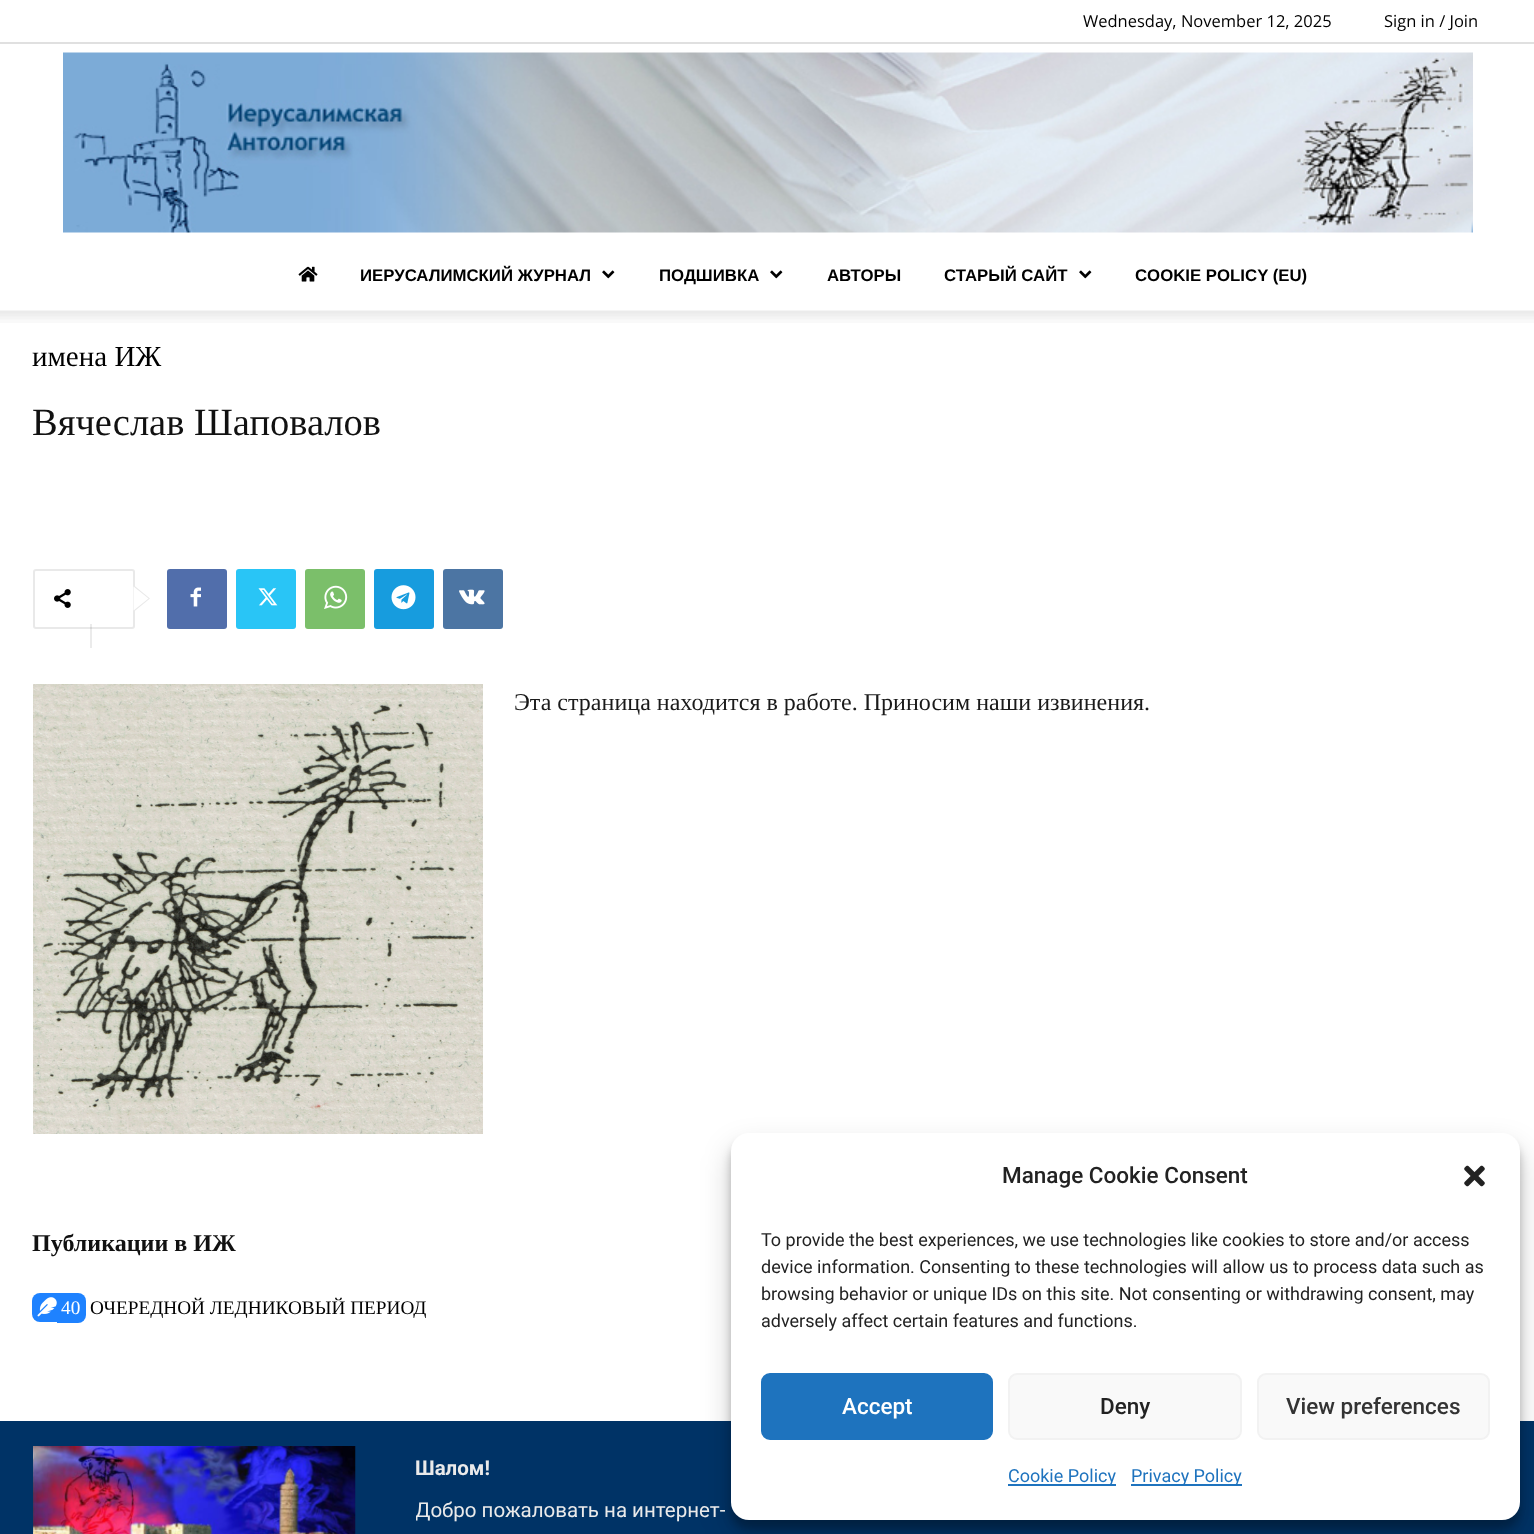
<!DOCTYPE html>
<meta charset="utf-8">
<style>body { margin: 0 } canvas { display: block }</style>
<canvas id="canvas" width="1534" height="1534"></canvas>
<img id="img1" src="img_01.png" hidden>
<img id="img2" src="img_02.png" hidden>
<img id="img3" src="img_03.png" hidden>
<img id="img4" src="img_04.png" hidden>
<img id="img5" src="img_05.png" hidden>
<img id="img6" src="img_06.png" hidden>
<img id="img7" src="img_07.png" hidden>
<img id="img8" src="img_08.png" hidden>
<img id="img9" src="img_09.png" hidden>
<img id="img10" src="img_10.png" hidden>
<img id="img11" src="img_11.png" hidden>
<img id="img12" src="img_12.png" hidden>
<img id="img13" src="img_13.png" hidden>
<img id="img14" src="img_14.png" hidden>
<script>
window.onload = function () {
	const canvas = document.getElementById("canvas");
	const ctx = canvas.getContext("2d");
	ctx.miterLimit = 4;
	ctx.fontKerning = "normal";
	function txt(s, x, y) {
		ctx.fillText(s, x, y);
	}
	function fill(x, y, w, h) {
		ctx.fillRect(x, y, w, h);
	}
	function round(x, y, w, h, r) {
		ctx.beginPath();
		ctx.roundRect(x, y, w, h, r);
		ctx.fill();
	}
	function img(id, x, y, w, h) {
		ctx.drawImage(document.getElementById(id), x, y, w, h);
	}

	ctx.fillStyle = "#FFFFFF";
	fill(0, 0, 1534, 1534);
	ctx.fillStyle = "#E0E0E0";
	fill(0, 42, 1534, 2);
	img("img1", 63, 52, 1410, 181);
	img("img2", 298, 266, 20, 16);
	img("img3", 602, 270, 13, 9);
	img("img3", 770, 270, 13, 9);
	img("img3", 1079, 270, 13, 9);
	img("img4", 0, 310, 1534, 13);
	ctx.beginPath();
	ctx.roundRect(34, 570, 100, 58, 2);
	ctx.strokeStyle = "#E9E9E9";
	ctx.lineWidth = 2;
	ctx.stroke();
	ctx.fillStyle = "#E9E9E9";
	ctx.beginPath();
	ctx.moveTo(133.5, 612);
	ctx.lineTo(133.5, 585);
	ctx.lineTo(150, 598.5);
	ctx.closePath();
	ctx.fill();
	img("img5", 54, 589, 17, 19);
	ctx.fillStyle = "#FFFFFF";
	ctx.beginPath();
	ctx.moveTo(133.5, 610.5);
	ctx.lineTo(133.5, 586.5);
	ctx.lineTo(148.5, 598.5);
	ctx.closePath();
	ctx.fill();
	ctx.fillStyle = "rgba(0, 0, 0, 0.08)";
	fill(90, 624, 2, 24);
	ctx.fillStyle = "#516EAB";
	round(167, 569, 60, 60, 3);
	img("img6", 190, 587, 11, 20);
	ctx.fillStyle = "#29C5F6";
	round(236, 569, 60, 60, 3);
	img("img7", 258, 588, 20, 18);
	ctx.fillStyle = "#7BBF6A";
	round(305, 569, 60, 60, 3);
	img("img8", 324, 585, 24, 24);
	ctx.fillStyle = "#179CDE";
	round(374, 569, 60, 60, 3);
	img("img9", 391, 585, 25, 25);
	ctx.fillStyle = "#4C75A3";
	round(443, 569, 60, 60, 3);
	img("img10", 459, 589, 26, 16);
	img("img11", 33, 684, 450, 450);
	ctx.fillStyle = "#1E82FF";
	ctx.beginPath();
	ctx.roundRect(32, 1293, 25, 29, [8, 0, 0, 8]);
	ctx.fill();
	img("img12", 37, 1297, 20, 20);
	ctx.beginPath();
	ctx.roundRect(57, 1293, 29, 30, [0, 8, 8, 0]);
	ctx.fill();
	ctx.fillStyle = "#003366";
	fill(0, 1421, 1534, 113);
	img("img13", 33, 1446, 323, 88);
	ctx.fillStyle = "rgba(0, 0, 0, 0.23)";
	ctx.filter = "blur(4.5px)";
	ctx.beginPath();
	ctx.roundRect(731, 1142, 789, 387, 18);
	ctx.fill();
	ctx.filter = "none";
	ctx.fillStyle = "rgba(0, 0, 0, 0.19)";
	ctx.filter = "blur(15px)";
	ctx.beginPath();
	ctx.roundRect(731, 1148, 789, 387, 18);
	ctx.fill();
	ctx.filter = "none";
	ctx.fillStyle = "#FFFFFF";
	round(731, 1133, 789, 387, 18);
	img("img14", 1464, 1165, 21, 22);
	ctx.fillStyle = "#1E73BE";
	ctx.beginPath();
	ctx.roundRect(762, 1374, 230, 65, 8);
	ctx.fill();
	ctx.strokeStyle = "#1E73BE";
	ctx.stroke();
	ctx.fillStyle = "#F9F9F9";
	ctx.beginPath();
	ctx.roundRect(1009, 1374, 232, 65, 8);
	ctx.fill();
	ctx.strokeStyle = "#F2F2F2";
	ctx.stroke();
	ctx.beginPath();
	ctx.roundRect(1258, 1374, 231, 65, 8);
	ctx.fill();
	ctx.stroke();
	ctx.fillStyle = "#1E73BE";
	fill(1008, 1484, 108, 2);
	fill(1131, 1484, 111, 2);
	ctx.font = "16.5px Open Sans";
	ctx.fillStyle = "#000000";
	txt("Wednesday, November 12, 2025", 1083, 27);
	txt("Sign in / Join", 1384, 27);
	ctx.font = "bold 16.8px Liberation Sans";
	txt("ИЕРУСАЛИМСКИЙ ЖУРНАЛ", 360, 281);
	txt("ПОДШИВКА", 659, 281);
	txt("АВТОРЫ", 827, 281);
	txt("СТАРЫЙ САЙТ", 944, 281);
	txt("COOKIE POLICY (EU)", 1135, 281);
	ctx.font = "29px Liberation Serif";
	txt("имена ИЖ", 32, 366);
	ctx.font = "38.5px Liberation Serif";
	ctx.fillStyle = "#111111";
	txt("Вячеслав Шаповалов", 32, 435);
	ctx.font = "24.05px Liberation Serif";
	ctx.fillStyle = "#1A1A1A";
	txt("Эта страница находится в работе. Приносим наши извинения.", 514, 710);
	ctx.font = "bold 24.05px Liberation Serif";
	ctx.fillStyle = "#111111";
	txt("Публикации в ИЖ", 32, 1251);
	ctx.font = "19.25px Liberation Serif";
	ctx.fillStyle = "#FFFFFF";
	txt("40", 61, 1314);
	ctx.fillStyle = "#000000";
	txt("ОЧЕРЕДНОЙ ЛЕДНИКОВЫЙ ПЕРИОД", 90, 1314);
	ctx.font = "bold 20.5px Roboto";
	ctx.fillStyle = "#EAEAEA";
	txt("Шалом!", 415, 1475);
	ctx.save();
	ctx.beginPath();
	ctx.rect(416, 1446, 1087, 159);
	ctx.clip();
	ctx.font = "20.5px Roboto";
	txt("Добро пожаловать на интернет-", 415, 1517);
	ctx.restore();
	ctx.font = "500 22.5px Roboto";
	ctx.fillStyle = "#222222";
	txt("Manage Cookie Consent", 1002, 1183);
	ctx.font = "18px Roboto";
	txt("To provide the best experiences, we use technologies like cookies to store and/or access", 761, 1246);
	txt("device information. Consenting to these technologies will allow us to process data such as", 761, 1273);
	txt("browsing behavior or unique IDs on this site. Not consenting or withdrawing consent, may", 761, 1300);
	txt("adversely affect certain features and functions.", 761, 1327);
	ctx.font = "500 22.5px Roboto";
	ctx.fillStyle = "#FFFFFF";
	txt("Accept", 842, 1414);
	ctx.fillStyle = "#222222";
	txt("Deny", 1100, 1414);
	ctx.fillStyle = "#333333";
	txt("View preferences", 1286, 1414);
	ctx.font = "18px Roboto";
	ctx.fillStyle = "#1E73BE";
	txt("Cookie Policy", 1008, 1482);
	txt("Privacy Policy", 1131, 1482);
};
</script>
